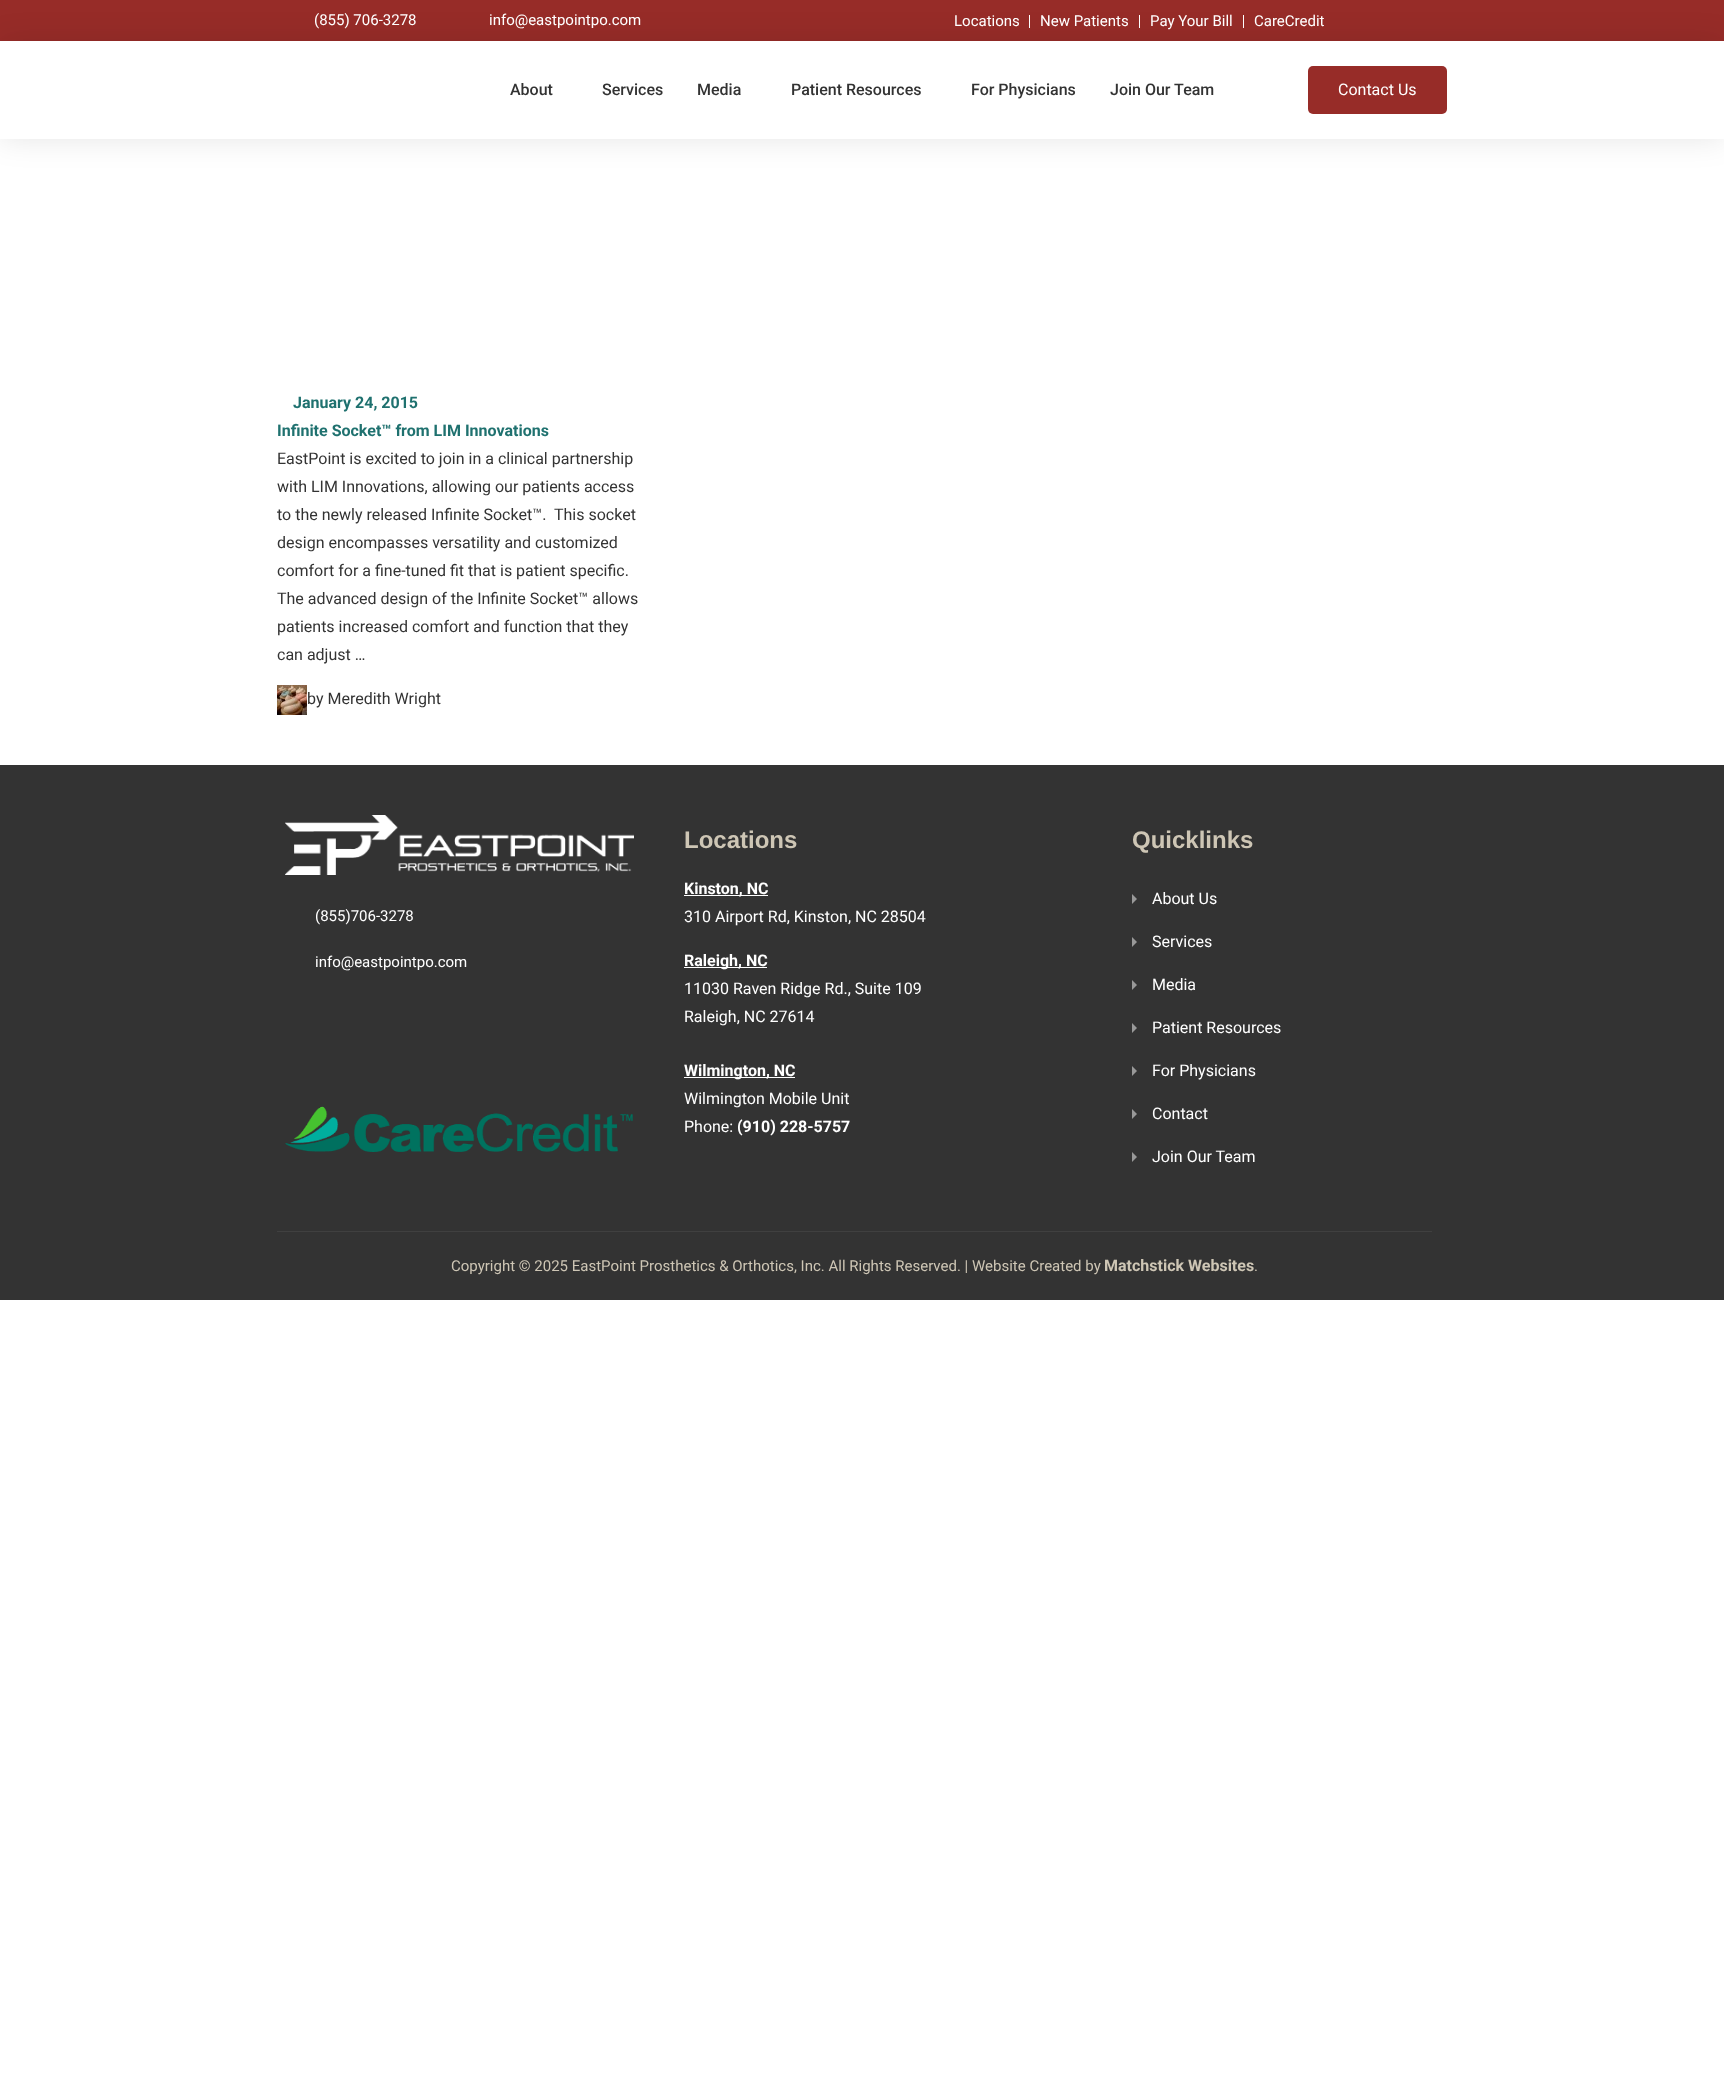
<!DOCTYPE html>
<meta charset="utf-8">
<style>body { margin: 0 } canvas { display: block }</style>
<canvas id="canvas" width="1724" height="2088"></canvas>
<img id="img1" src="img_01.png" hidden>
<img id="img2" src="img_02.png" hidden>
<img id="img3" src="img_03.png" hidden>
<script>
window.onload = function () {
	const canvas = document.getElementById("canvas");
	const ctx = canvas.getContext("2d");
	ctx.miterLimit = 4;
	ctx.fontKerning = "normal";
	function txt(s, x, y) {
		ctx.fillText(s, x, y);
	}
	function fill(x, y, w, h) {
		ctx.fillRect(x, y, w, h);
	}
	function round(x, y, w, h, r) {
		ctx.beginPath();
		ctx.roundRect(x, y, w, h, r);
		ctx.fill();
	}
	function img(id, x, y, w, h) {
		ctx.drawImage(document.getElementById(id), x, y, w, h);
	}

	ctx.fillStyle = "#FFFFFF";
	fill(0, 0, 1724, 2088);
	ctx.fillStyle = "#972C28";
	fill(0, 0, 1724, 41);
	ctx.fillStyle = "#FFFFFF";
	fill(1029, 15, 1, 13);
	fill(1139, 15, 1, 13);
	fill(1243, 15, 1, 13);
	ctx.fillStyle = "rgba(0, 0, 0, 0.1)";
	ctx.filter = "blur(15px)";
	ctx.beginPath();
	ctx.rect(0, 41, 1724, 98);
	ctx.fill();
	ctx.filter = "none";
	ctx.fillStyle = "#FFFFFF";
	fill(0, 41, 1724, 98);
	ctx.fillStyle = "#972C28";
	round(1308, 66, 139, 48, 5);
	img("img1", 277, 685, 30, 30);
	ctx.fillStyle = "#333333";
	fill(0, 765, 1724, 535);
	img("img2", 285, 815, 349, 60);
	img("img3", 285, 1106, 348, 46);
	ctx.fillStyle = "#FFFFFF";
	fill(684, 895, 84, 1);
	fill(684, 967, 83, 1);
	fill(684, 1077, 111, 1);
	ctx.fillStyle = "#999999";
	ctx.beginPath();
	ctx.moveTo(1132, 904);
	ctx.lineTo(1132, 894);
	ctx.lineTo(1137, 899);
	ctx.closePath();
	ctx.fill();
	ctx.beginPath();
	ctx.moveTo(1132, 947);
	ctx.lineTo(1132, 937);
	ctx.lineTo(1137, 942);
	ctx.closePath();
	ctx.fill();
	ctx.beginPath();
	ctx.moveTo(1132, 990);
	ctx.lineTo(1132, 980);
	ctx.lineTo(1137, 985);
	ctx.closePath();
	ctx.fill();
	ctx.beginPath();
	ctx.moveTo(1132, 1033);
	ctx.lineTo(1132, 1023);
	ctx.lineTo(1137, 1028);
	ctx.closePath();
	ctx.fill();
	ctx.beginPath();
	ctx.moveTo(1132, 1076);
	ctx.lineTo(1132, 1066);
	ctx.lineTo(1137, 1071);
	ctx.closePath();
	ctx.fill();
	ctx.beginPath();
	ctx.moveTo(1132, 1119);
	ctx.lineTo(1132, 1109);
	ctx.lineTo(1137, 1114);
	ctx.closePath();
	ctx.fill();
	ctx.beginPath();
	ctx.moveTo(1132, 1162);
	ctx.lineTo(1132, 1152);
	ctx.lineTo(1137, 1157);
	ctx.closePath();
	ctx.fill();
	ctx.fillStyle = "#404040";
	fill(277, 1231, 1155, 1);
	ctx.font = "15px Roboto";
	ctx.fillStyle = "#FFFFFF";
	txt("(855) 706-3278", 314, 25);
	txt("info@eastpointpo.com", 489, 25);
	txt("Locations", 954, 26);
	txt("New Patients", 1040, 26);
	txt("Pay Your Bill", 1150, 26);
	txt("CareCredit", 1254, 26);
	ctx.font = "500 16px Roboto";
	ctx.fillStyle = "#333333";
	txt("About", 510, 95);
	txt("Services", 602, 95);
	txt("Media", 697, 95);
	txt("Patient Resources", 791, 95);
	txt("For Physicians", 971, 95);
	txt("Join Our Team", 1110, 95);
	ctx.font = "16px Roboto";
	ctx.fillStyle = "#FFFFFF";
	txt("Contact Us", 1338, 95);
	ctx.font = "bold 16px Roboto";
	ctx.fillStyle = "#1F716F";
	txt("January 24, 2015", 293, 408);
	txt("Infinite Socket™ from LIM Innovations", 277, 436);
	ctx.font = "16px Roboto";
	ctx.fillStyle = "#333333";
	txt("EastPoint is excited to join in a clinical partnership", 277, 464);
	txt("with LIM Innovations, allowing our patients access", 277, 492);
	txt("to the newly released Infinite Socket™.  This socket", 277, 520);
	txt("design encompasses versatility and customized", 277, 548);
	txt("comfort for a fine-tuned fit that is patient specific.", 277, 576);
	txt("The advanced design of the Infinite Socket™ allows", 277, 604);
	txt("patients increased comfort and function that they", 277, 632);
	txt("can adjust …", 277, 660);
	txt("by Meredith Wright", 307, 704);
	ctx.font = "15px Roboto";
	ctx.fillStyle = "#FFFFFF";
	txt("(855)706-3278", 315, 921);
	txt("info@eastpointpo.com", 315, 967);
	ctx.font = "bold 24px Liberation Sans";
	ctx.fillStyle = "#CEC6B5";
	txt("Locations", 684, 848);
	ctx.font = "bold 16px Roboto";
	ctx.fillStyle = "#FFFFFF";
	txt("Kinston, NC", 684, 894);
	ctx.font = "16px Roboto";
	txt("310 Airport Rd, Kinston, NC 28504", 684, 922);
	ctx.font = "bold 16px Roboto";
	txt("Raleigh, NC", 684, 966);
	ctx.font = "16px Roboto";
	txt("11030 Raven Ridge Rd., Suite 109", 684, 994);
	txt("Raleigh, NC 27614", 684, 1022);
	ctx.font = "bold 16px Roboto";
	txt("Wilmington, NC", 684, 1076);
	ctx.font = "16px Roboto";
	txt("Wilmington Mobile Unit", 684, 1104);
	txt("Phone:", 684, 1132);
	ctx.font = "bold 16px Roboto";
	txt("(910) 228-5757", 737, 1132);
	ctx.font = "bold 24px Liberation Sans";
	ctx.fillStyle = "#CEC6B5";
	txt("Quicklinks", 1132, 848);
	ctx.font = "16px Roboto";
	ctx.fillStyle = "#FFFFFF";
	txt("About Us", 1152, 904);
	txt("Services", 1152, 947);
	txt("Media", 1152, 990);
	txt("Patient Resources", 1152, 1033);
	txt("For Physicians", 1152, 1076);
	txt("Contact", 1152, 1119);
	txt("Join Our Team", 1152, 1162);
	ctx.font = "15px Roboto";
	ctx.fillStyle = "#CEC6B5";
	txt("Copyright © 2025 EastPoint Prosthetics & Orthotics, Inc. All Rights Reserved. | Website Created by", 451, 1271);
	ctx.font = "bold 16px Roboto";
	txt("Matchstick Websites", 1104, 1271);
	ctx.font = "15px Roboto";
	txt(".", 1254, 1271);
};
</script>
